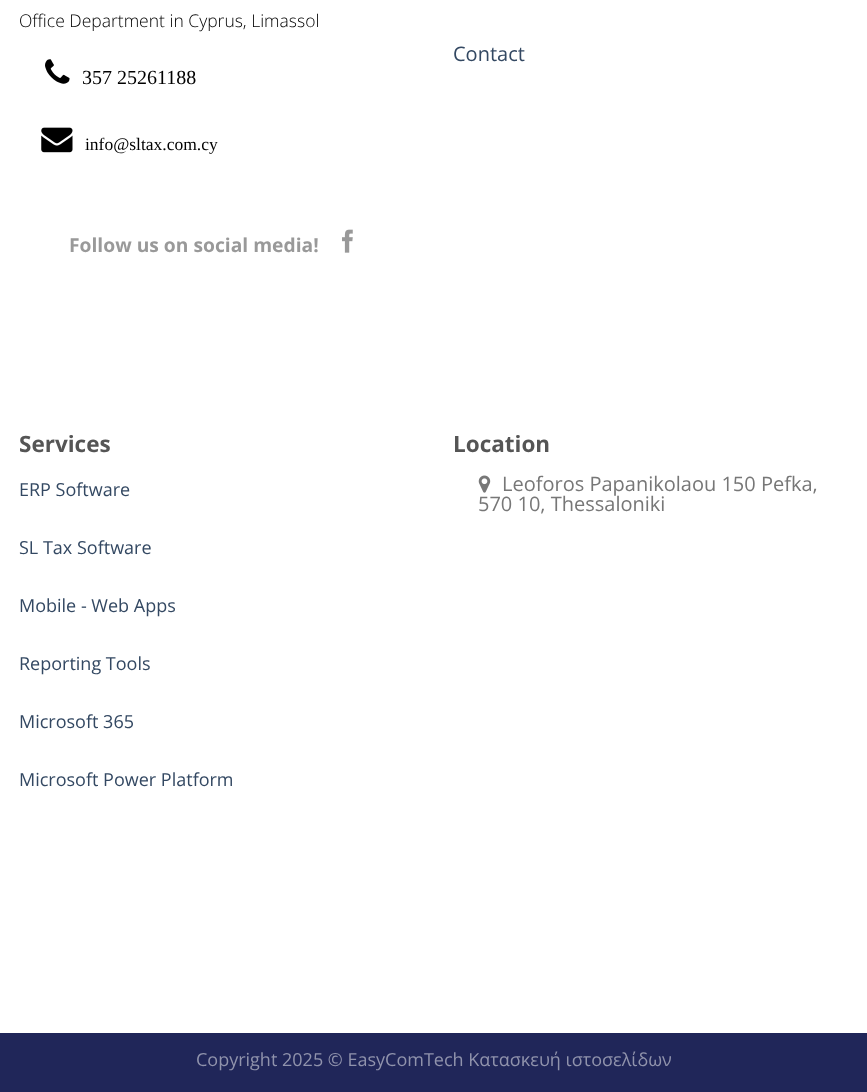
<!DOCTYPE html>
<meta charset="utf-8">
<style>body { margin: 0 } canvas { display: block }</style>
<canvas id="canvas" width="867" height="1092"></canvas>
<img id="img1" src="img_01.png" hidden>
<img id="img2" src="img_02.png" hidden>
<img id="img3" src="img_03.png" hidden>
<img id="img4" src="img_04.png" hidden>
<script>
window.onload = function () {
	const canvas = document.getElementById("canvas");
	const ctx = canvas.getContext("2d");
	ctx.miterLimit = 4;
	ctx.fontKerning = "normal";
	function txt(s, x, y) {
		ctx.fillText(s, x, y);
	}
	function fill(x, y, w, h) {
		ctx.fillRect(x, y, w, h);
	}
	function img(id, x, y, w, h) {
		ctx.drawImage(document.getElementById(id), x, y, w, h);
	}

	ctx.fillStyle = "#FFFFFF";
	fill(0, 0, 867, 1092);
	img("img1", 45, 59, 25, 25);
	img("img2", 41, 127, 32, 26);
	img("img3", 342, 229, 11, 24);
	img("img4", 478, 475, 13, 18);
	ctx.fillStyle = "#202659";
	fill(0, 1033, 867, 59);
	ctx.font = "300 17.5px Open Sans";
	ctx.fillStyle = "#000000";
	txt("Office Department in Cyprus, Limassol", 19, 27);
	ctx.font = "20px Liberation Serif";
	txt("357 25261188", 82, 84);
	ctx.font = "17.5px Liberation Serif";
	txt("info@sltax.com.cy", 85, 150);
	ctx.font = "bold 19.25px Open Sans";
	ctx.fillStyle = "#999999";
	txt("Follow us on social media!", 69, 252);
	ctx.font = "20px Open Sans";
	ctx.fillStyle = "#334862";
	txt("Contact", 453, 61);
	ctx.font = "bold 22.5px Open Sans";
	ctx.fillStyle = "#555555";
	txt("Services", 19, 452);
	ctx.font = "18px Open Sans";
	ctx.fillStyle = "#334862";
	txt("ERP Software", 19, 496);
	txt("SL Tax Software", 19, 554);
	txt("Mobile - Web Apps", 19, 612);
	txt("Reporting Tools", 19, 670);
	txt("Microsoft 365", 19, 728);
	txt("Microsoft Power Platform", 19, 786);
	ctx.font = "bold 22.5px Open Sans";
	ctx.fillStyle = "#555555";
	txt("Location", 453, 452);
	ctx.font = "20px Open Sans";
	ctx.fillStyle = "#777777";
	txt("Leoforos Papanikolaou 150 Pefka,", 502, 491);
	txt("570 10, Thessaloniki", 478, 511);
	ctx.font = "18px Open Sans";
	ctx.fillStyle = "#9093AC";
	txt("Copyright 2025 © EasyComTech Κατασκευή ιστοσελίδων", 196, 1066);
};
</script>
